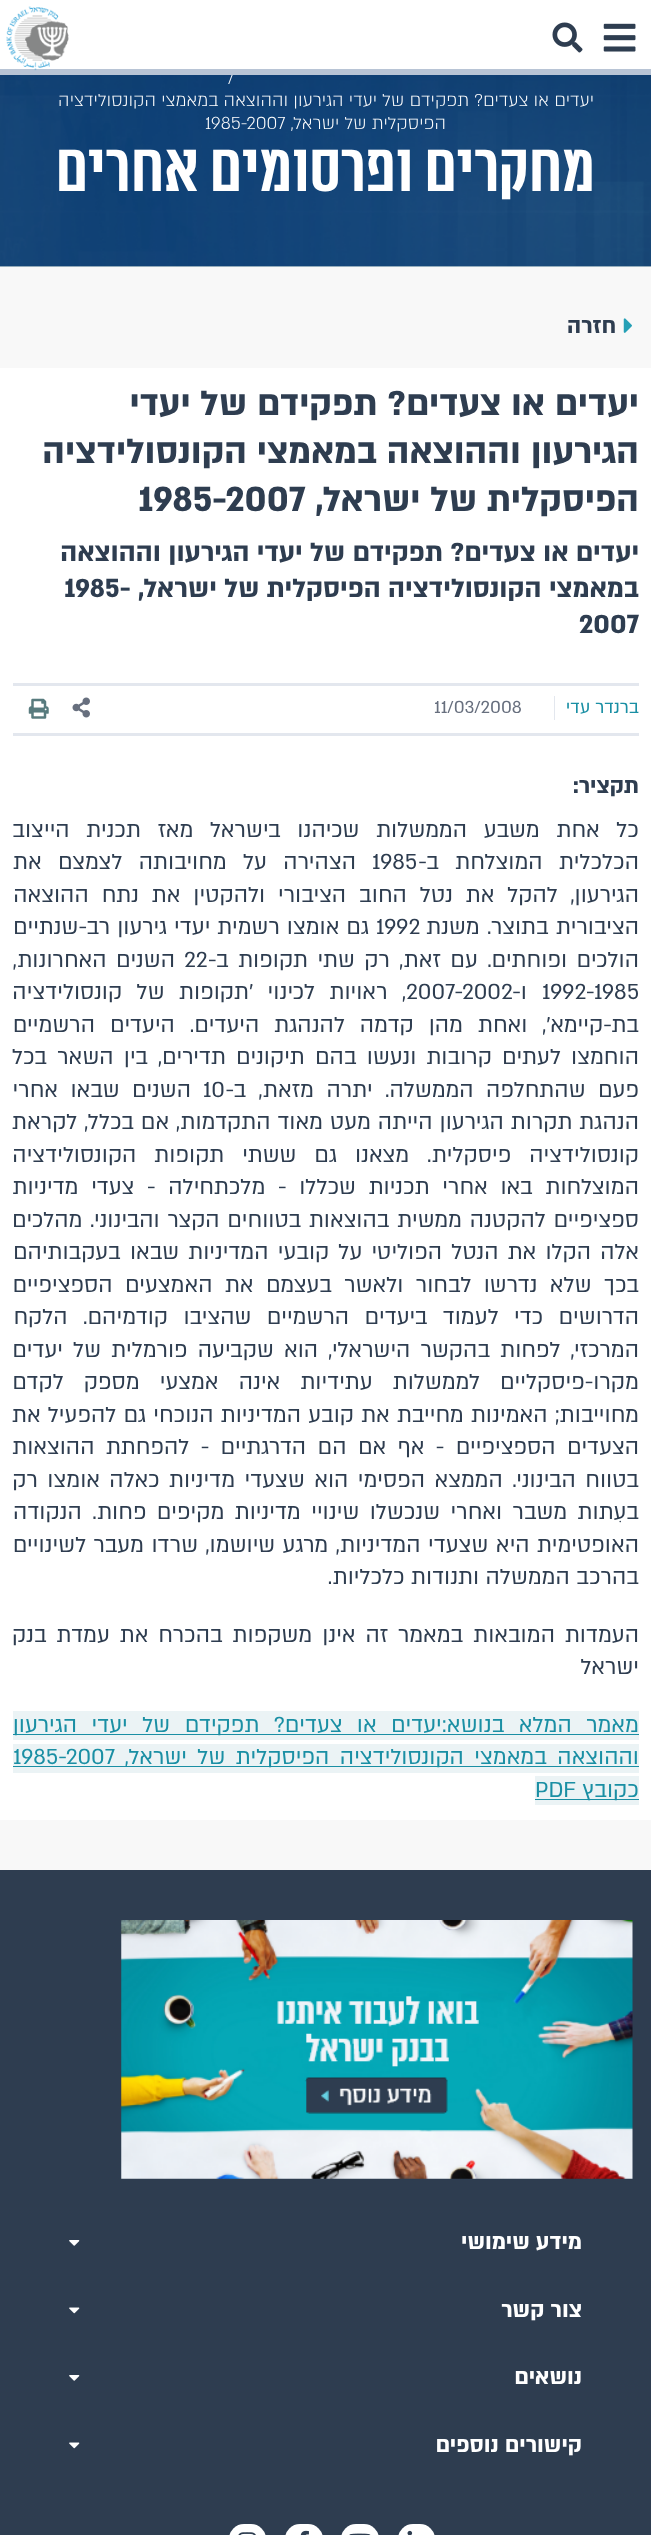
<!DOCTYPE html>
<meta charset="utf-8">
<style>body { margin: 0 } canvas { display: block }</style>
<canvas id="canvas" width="651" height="2535"></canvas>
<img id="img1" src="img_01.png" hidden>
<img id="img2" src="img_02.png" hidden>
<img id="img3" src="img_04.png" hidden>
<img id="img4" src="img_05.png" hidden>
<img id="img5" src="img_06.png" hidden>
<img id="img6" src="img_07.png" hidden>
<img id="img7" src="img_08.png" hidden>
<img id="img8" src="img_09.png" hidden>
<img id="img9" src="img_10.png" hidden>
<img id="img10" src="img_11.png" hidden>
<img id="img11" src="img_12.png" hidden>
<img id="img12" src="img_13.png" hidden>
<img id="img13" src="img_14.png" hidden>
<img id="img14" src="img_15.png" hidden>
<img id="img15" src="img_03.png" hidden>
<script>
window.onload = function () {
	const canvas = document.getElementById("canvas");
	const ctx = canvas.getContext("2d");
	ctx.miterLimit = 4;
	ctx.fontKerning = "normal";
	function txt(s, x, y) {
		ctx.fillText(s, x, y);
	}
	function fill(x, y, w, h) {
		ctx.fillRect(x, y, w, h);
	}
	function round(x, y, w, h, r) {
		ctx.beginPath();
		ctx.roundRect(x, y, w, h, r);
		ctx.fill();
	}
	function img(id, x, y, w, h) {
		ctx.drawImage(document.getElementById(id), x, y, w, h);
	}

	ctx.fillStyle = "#F8F8F8";
	fill(0, 0, 651, 2535);
	ctx.fillStyle = "#FFFFFF";
	fill(0, 0, 651, 69);
	img("img1", 603, 23, 33, 29);
	img("img2", 552, 22, 31, 31);
	img("img3", 0, 266, 651, 1);
	img("img4", 0, 75, 651, 192);
	img("img5", 623, 318, 9, 15);
	fill(0, 368, 651, 1452);
	ctx.fillStyle = "#E3E7EE";
	fill(13, 683, 626, 3);
	fill(13, 733, 626, 3);
	fill(554, 696, 1, 24);
	img("img6", 72, 697, 18, 21);
	img("img7", 28, 698, 21, 21);
	ctx.fillStyle = "#EBF3F5";
	fill(13, 1711, 626, 29);
	ctx.fillStyle = "#1A8FA4";
	fill(13, 1734, 626, 1);
	ctx.fillStyle = "#EBF3F5";
	fill(13, 1744, 626, 29);
	ctx.fillStyle = "#1A8FA4";
	fill(13, 1766, 626, 1);
	ctx.fillStyle = "#EBF3F5";
	fill(535, 1776, 104, 29);
	ctx.fillStyle = "#1A8FA4";
	fill(535, 1799, 104, 1);
	ctx.fillStyle = "#2E3D50";
	fill(0, 1870, 651, 665);
	img("img8", 121, 1920, 512, 259);
	img("img9", 69, 2240, 11, 6);
	img("img10", 69, 2307, 11, 7);
	img("img9", 69, 2375, 11, 6);
	img("img10", 69, 2442, 11, 7);
	ctx.fillStyle = "#FFFFFF";
	round(398, 2524, 37, 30, 18.5);
	img("img11", 407, 2530, 6, 5);
	round(341, 2524, 38, 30, 18.5);
	img("img12", 349, 2533, 22, 2);
	round(285, 2524, 38, 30, 18.5);
	img("img13", 300, 2530, 9, 5);
	round(229, 2524, 37, 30, 18.5);
	img("img14", 238, 2532, 18, 3);
	ctx.font = "300 20px 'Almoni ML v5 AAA'";
	txt("/", 228, 84);
	ctx.fillStyle = "#B8C4D5";
	fill(0, 69, 651, 6);
	img("img15", 6, 6, 63, 65);
	ctx.direction = "rtl";
	ctx.fillStyle = "#FFFFFF";
	txt("יעדים או צעדים? תפקידם של יעדי הגירעון וההוצאה במאמצי הקונסולידציה", 594, 106);
	txt("הפיסקלית של ישראל,", 446, 129);
	ctx.direction = "ltr";
	txt("1985-2007", 205, 129);
	ctx.direction = "rtl";
	ctx.font = "bold 68.75px 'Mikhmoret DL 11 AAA'";
	txt("מחקרים ופרסומים אחרים", 595, 191);
	ctx.font = "bold 25px 'Almoni ML v5 AAA'";
	ctx.fillStyle = "#2E3D50";
	txt("חזרה", 616, 333);
	ctx.font = "bold 40px 'Almoni ML v5 AAA'";
	txt("יעדים או צעדים? תפקידם של יעדי", 639, 415);
	txt("הגירעון וההוצאה במאמצי הקונסולידציה", 639, 463);
	txt("הפיסקלית של ישראל,", 639, 511);
	ctx.direction = "ltr";
	txt("1985-2007", 138, 511);
	ctx.direction = "rtl";
	ctx.font = "bold 30px 'Almoni ML v5 AAA'";
	txt("יעדים או צעדים? תפקידם של יעדי הגירעון וההוצאה", 639, 561);
	txt("במאמצי הקונסולידציה הפיסקלית של ישראל,", 639, 597);
	ctx.direction = "ltr";
	txt("1985-", 64, 597);
	txt("2007", 579, 633);
	ctx.direction = "rtl";
	ctx.font = "20px 'Almoni ML v5 AAA'";
	ctx.fillStyle = "#1A8FA4";
	txt("ברנדר עדי", 639, 713);
	ctx.direction = "ltr";
	ctx.fillStyle = "#676F7E";
	txt("11/03/2008", 434, 713);
	ctx.direction = "rtl";
	ctx.font = "bold 25px 'Almoni ML v5 AAA'";
	ctx.fillStyle = "#2E3D50";
	txt("תקציר:", 639, 793);
	ctx.wordSpacing = "10.25px";
	ctx.font = "25px 'Almoni ML v5 AAA'";
	txt("כל אחת משבע הממשלות שכיהנו בישראל מאז תכנית הייצוב", 639, 837);
	ctx.wordSpacing = "10px";
	txt("הכלכלית המוצלחת ב-", 639, 869);
	ctx.wordSpacing = "0px";
	ctx.direction = "ltr";
	txt("1985", 372, 869);
	ctx.wordSpacing = "10px";
	ctx.direction = "rtl";
	txt("הצהירה על מחויבותה לצמצם את", 356, 869);
	ctx.wordSpacing = "6.5px";
	txt("הגירעון, להקל את נטל החוב הציבורי ולהקטין את נתח ההוצאה", 639, 902);
	ctx.wordSpacing = "1px";
	txt("הציבורית בתוצר. משנת", 639, 934);
	ctx.wordSpacing = "0px";
	ctx.direction = "ltr";
	txt("1992", 376, 934);
	ctx.wordSpacing = "0.5px";
	ctx.direction = "rtl";
	txt("גם אומצו רשמית יעדי גירעון רב-שנתיים", 369, 934);
	ctx.wordSpacing = "3px";
	txt("הולכים ופוחתים. עם זאת, רק שתי תקופות ב-", 639, 967);
	ctx.wordSpacing = "0px";
	ctx.direction = "ltr";
	txt("22", 184, 967);
	ctx.wordSpacing = "3px";
	ctx.direction = "rtl";
	txt("השנים האחרונות,", 175, 967);
	ctx.wordSpacing = "0px";
	ctx.direction = "ltr";
	txt("1992-1985", 542, 999);
	ctx.direction = "rtl";
	txt("ו-", 527, 999);
	ctx.direction = "ltr";
	txt("2007-2002", 406, 999);
	ctx.wordSpacing = "8px";
	ctx.direction = "rtl";
	txt(", ראויות לכינוי 'תקופות של קונסולידציה", 406, 999);
	ctx.wordSpacing = "8.5px";
	txt("בת-קיימא', ואחת מהן קדמה להנהגת היעדים. היעדים הרשמיים", 639, 1032);
	ctx.wordSpacing = "3.75px";
	txt("הוחמצו לעתים קרובות ונעשו בהם תיקונים תדירים, בין השאר בכל", 639, 1064);
	ctx.wordSpacing = "6px";
	txt("פעם שהתחלפה הממשלה. יתרה מזאת, ב-", 639, 1097);
	ctx.wordSpacing = "0px";
	ctx.direction = "ltr";
	txt("10", 203, 1097);
	ctx.wordSpacing = "6px";
	ctx.direction = "rtl";
	txt("השנים שבאו אחרי", 191, 1097);
	ctx.wordSpacing = "0.5px";
	txt("הנהגת תקרות הגירעון הייתה מעט מאוד התקדמות, אם בכלל, לקראת", 639, 1129);
	ctx.wordSpacing = "11.5px";
	txt("קונסולידציה פיסקלית. מצאנו גם ששתי תקופות הקונסולידציה", 639, 1162);
	ctx.wordSpacing = "6.25px";
	txt("המוצלחות באו אחרי תכניות שכללו - מלכתחילה - צעדי מדיניות", 639, 1194);
	ctx.wordSpacing = "1.25px";
	txt("ספציפיים להקטנה ממשית בהוצאות בטווחים הקצר והבינוני. מהלכים", 639, 1227);
	ctx.wordSpacing = "2.75px";
	txt("אלה הקלו את הנטל הפוליטי על קובעי המדיניות שבאו בעקבותיהם", 639, 1259);
	ctx.wordSpacing = "6px";
	txt("בכך שלא נדרשו לבחור ולאשר בעצמם את האמצעים הספציפיים", 639, 1292);
	ctx.wordSpacing = "9px";
	txt("הדרושים כדי לעמוד ביעדים הרשמיים שהציבו קודמיהם. הלקח", 639, 1324);
	ctx.wordSpacing = "3.75px";
	txt("המרכזי, לפחות בהקשר הישראלי, הוא שקביעה פורמלית של יעדים", 639, 1357);
	ctx.wordSpacing = "13.75px";
	txt("מקרו-פיסקליים לממשלות עתידיות אינה אמצעי מספק לקדם", 639, 1389);
	ctx.wordSpacing = "0.75px";
	txt("מחוייבות; האמינות מחייבת את קובע המדיניות הנוכחי גם להפעיל את", 639, 1422);
	ctx.wordSpacing = "5px";
	txt("הצעדים הספציפיים - אף אם הם הדרגתיים - להפחתת ההוצאות", 639, 1454);
	ctx.wordSpacing = "3px";
	txt("בטווח הבינוני. הממצא הפסימי הוא שצעדי מדיניות כאלה אומצו רק", 639, 1487);
	ctx.wordSpacing = "4px";
	txt("בעִתות משבר ואחרי שנכשלו שינויי מדיניות מקיפים פחות. הנקודה", 639, 1519);
	ctx.wordSpacing = "1px";
	txt("האופטימית היא שצעדי המדיניות, מרגע שיושמו, שרדו מעבר לשינויים", 639, 1552);
	ctx.wordSpacing = "0px";
	txt("בהרכב הממשלה ותנודות כלכליות.", 639, 1584);
	ctx.wordSpacing = "3.5px";
	txt("העמדות המובאות במאמר זה אינן משקפות בהכרח את עמדת בנק", 639, 1642);
	ctx.wordSpacing = "0px";
	txt("ישראל", 639, 1674);
	ctx.wordSpacing = "8px";
	ctx.fillStyle = "#1A8FA4";
	txt("מאמר המלא בנושא:יעדים או צעדים? תפקידם של יעדי הגירעון", 639, 1732);
	ctx.wordSpacing = "4px";
	txt("וההוצאה במאמצי הקונסולידציה הפיסקלית של ישראל,", 639, 1764);
	ctx.wordSpacing = "0px";
	ctx.direction = "ltr";
	txt("1985-2007", 13, 1764);
	ctx.direction = "rtl";
	txt("כקובץ", 639, 1797);
	ctx.direction = "ltr";
	txt("PDF", 535, 1797);
	ctx.direction = "rtl";
	ctx.font = "bold 25px 'Almoni ML v5 AAA'";
	ctx.fillStyle = "#FFFFFF";
	txt("מידע שימושי", 582, 2249);
	txt("צור קשר", 582, 2317);
	txt("נושאים", 582, 2384);
	txt("קישורים נוספים", 582, 2452);
};
</script>
